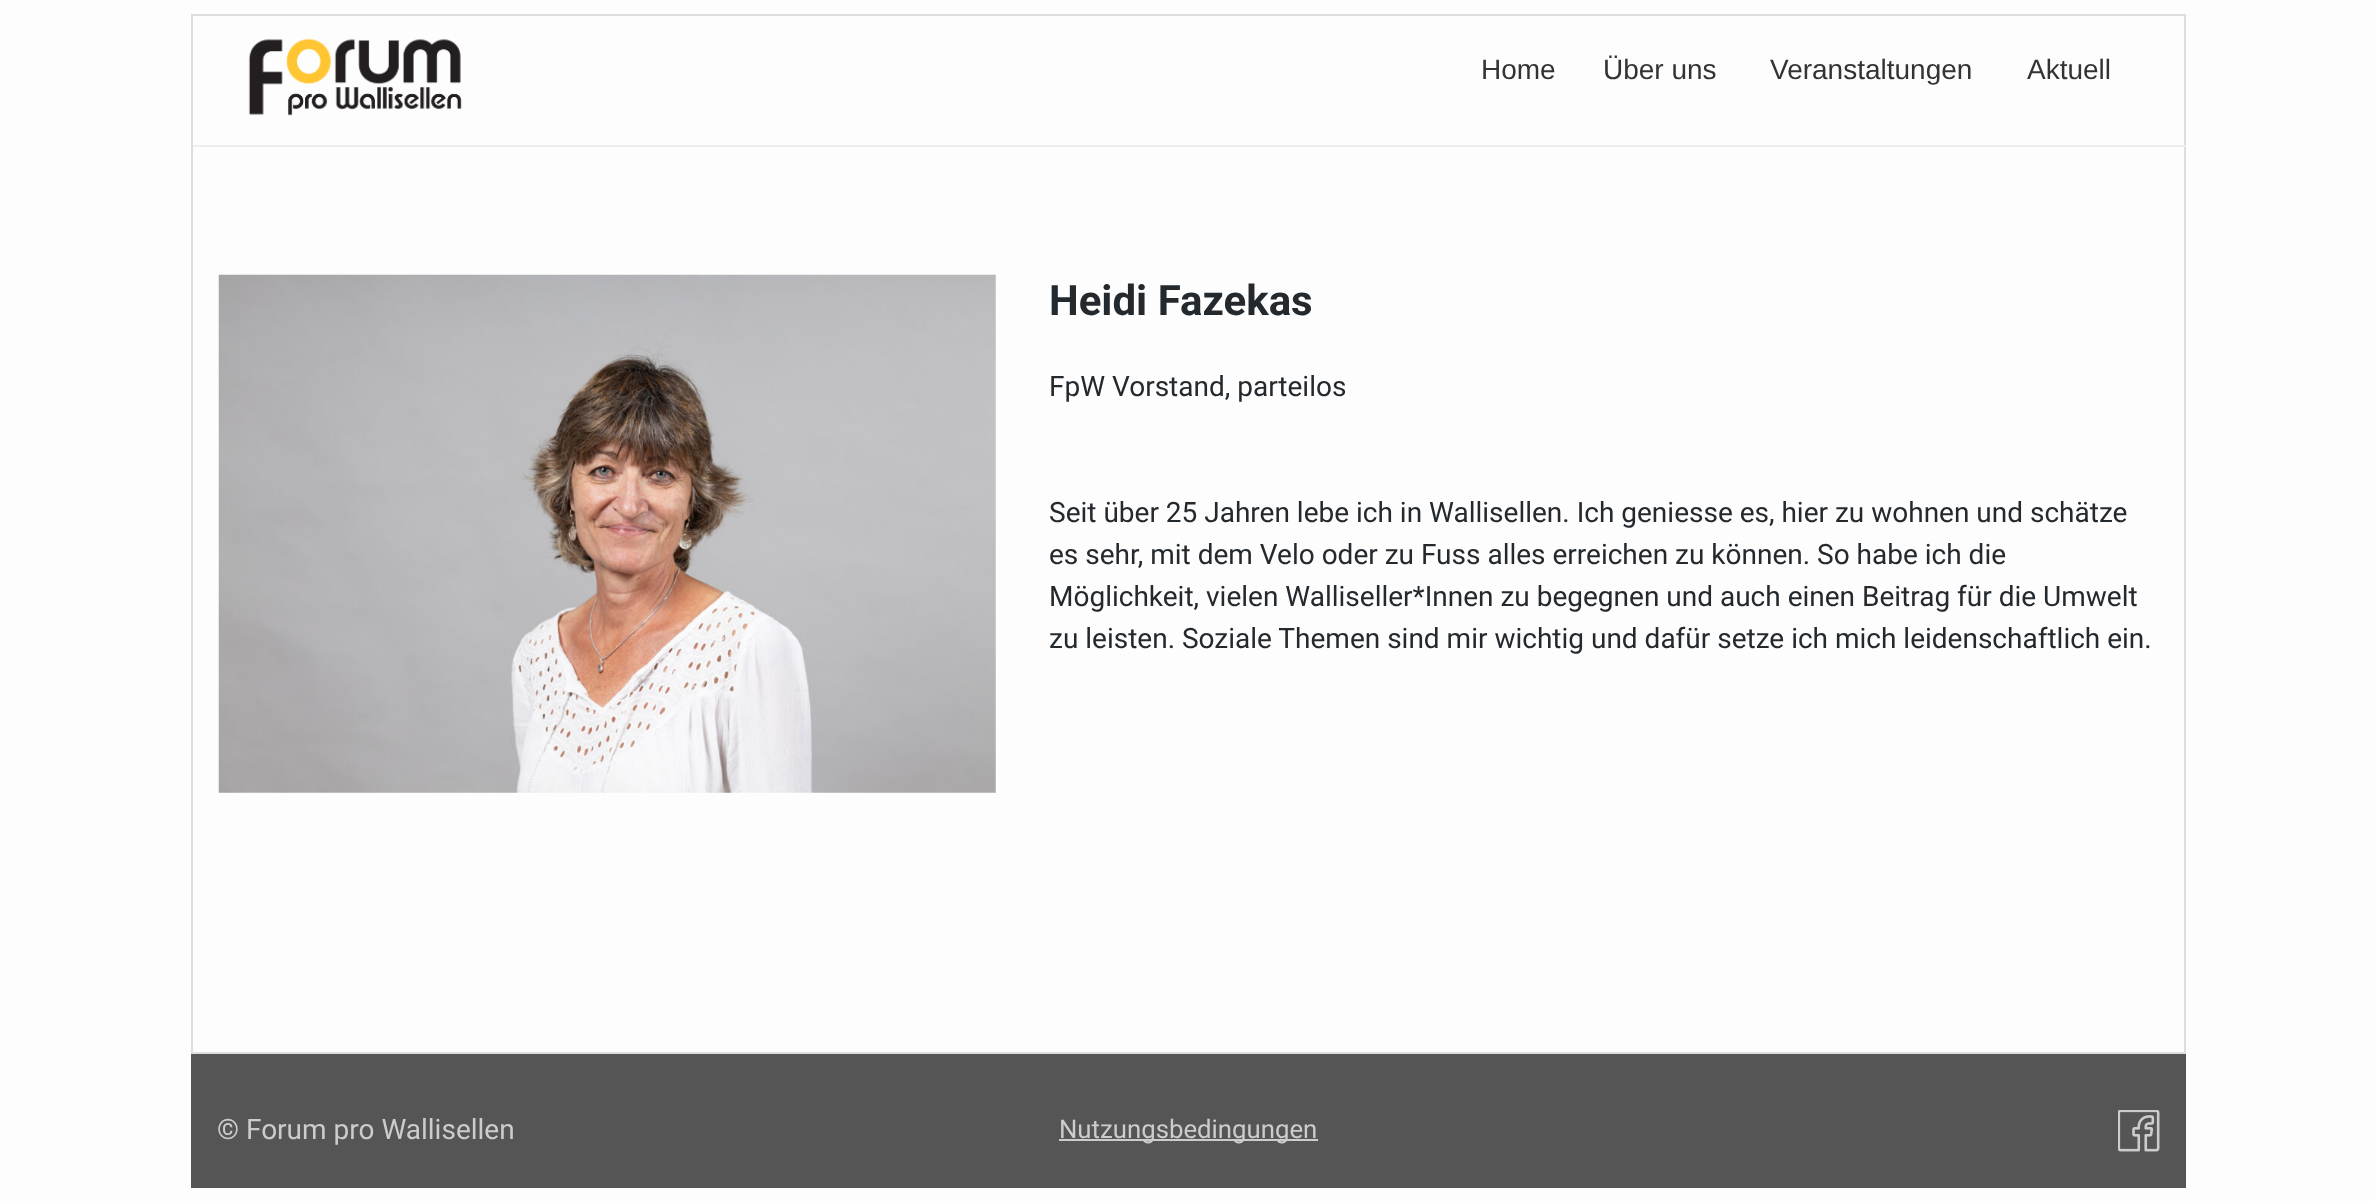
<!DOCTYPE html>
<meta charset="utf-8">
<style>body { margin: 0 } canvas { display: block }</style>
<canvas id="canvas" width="2375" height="1201"></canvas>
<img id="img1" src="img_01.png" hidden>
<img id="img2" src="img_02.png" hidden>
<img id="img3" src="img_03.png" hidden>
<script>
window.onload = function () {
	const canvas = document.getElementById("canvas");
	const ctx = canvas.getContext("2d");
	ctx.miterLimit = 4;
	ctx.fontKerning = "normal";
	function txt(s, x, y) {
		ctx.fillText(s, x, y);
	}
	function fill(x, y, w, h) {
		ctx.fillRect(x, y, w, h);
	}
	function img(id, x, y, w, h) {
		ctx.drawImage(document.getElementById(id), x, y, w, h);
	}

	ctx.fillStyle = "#FDFDFD";
	fill(0, 0, 2375, 1201);
	ctx.fillStyle = "#DDDDDD";
	fill(191, 14, 1995, 2);
	fill(2184, 14, 2, 1040);
	ctx.fillStyle = "#EEEEEE";
	fill(191, 145, 1995, 2);
	ctx.fillStyle = "#DDDDDD";
	fill(191, 14, 2, 133);
	img("img1", 248, 38, 214, 78);
	fill(191, 1052, 1995, 2);
	fill(191, 147, 2, 907);
	img("img2", 218, 274, 778, 519);
	ctx.fillStyle = "#555555";
	fill(191, 1054, 1995, 134);
	ctx.fillStyle = "#CCCCCC";
	fill(1059, 1139, 259, 2);
	img("img3", 2118, 1110, 42, 42);
	ctx.font = "28px Liberation Sans";
	ctx.fillStyle = "#333333";
	txt("Home", 1481, 79);
	txt("Über uns", 1603, 79);
	txt("Veranstaltungen", 1770, 79);
	txt("Aktuell", 2027, 79);
	ctx.font = "bold 42px Roboto";
	ctx.fillStyle = "#24292E";
	txt("Heidi Fazekas", 1049, 315);
	ctx.font = "28px Roboto";
	txt("FpW Vorstand, parteilos", 1049, 396);
	txt("Seit über 25 Jahren lebe ich in Wallisellen. Ich geniesse es, hier zu wohnen und schätze", 1049, 522);
	txt("es sehr, mit dem Velo oder zu Fuss alles erreichen zu können. So habe ich die", 1049, 564);
	txt("Möglichkeit, vielen Walliseller*Innen zu begegnen und auch einen Beitrag für die Umwelt", 1049, 606);
	txt("zu leisten. Soziale Themen sind mir wichtig und dafür setze ich mich leidenschaftlich ein.", 1049, 648);
	ctx.fillStyle = "#CCCCCC";
	txt("© Forum pro Wallisellen", 217, 1139);
	ctx.font = "25.75px Roboto";
	txt("Nutzungsbedingungen", 1059, 1138);
};
</script>
